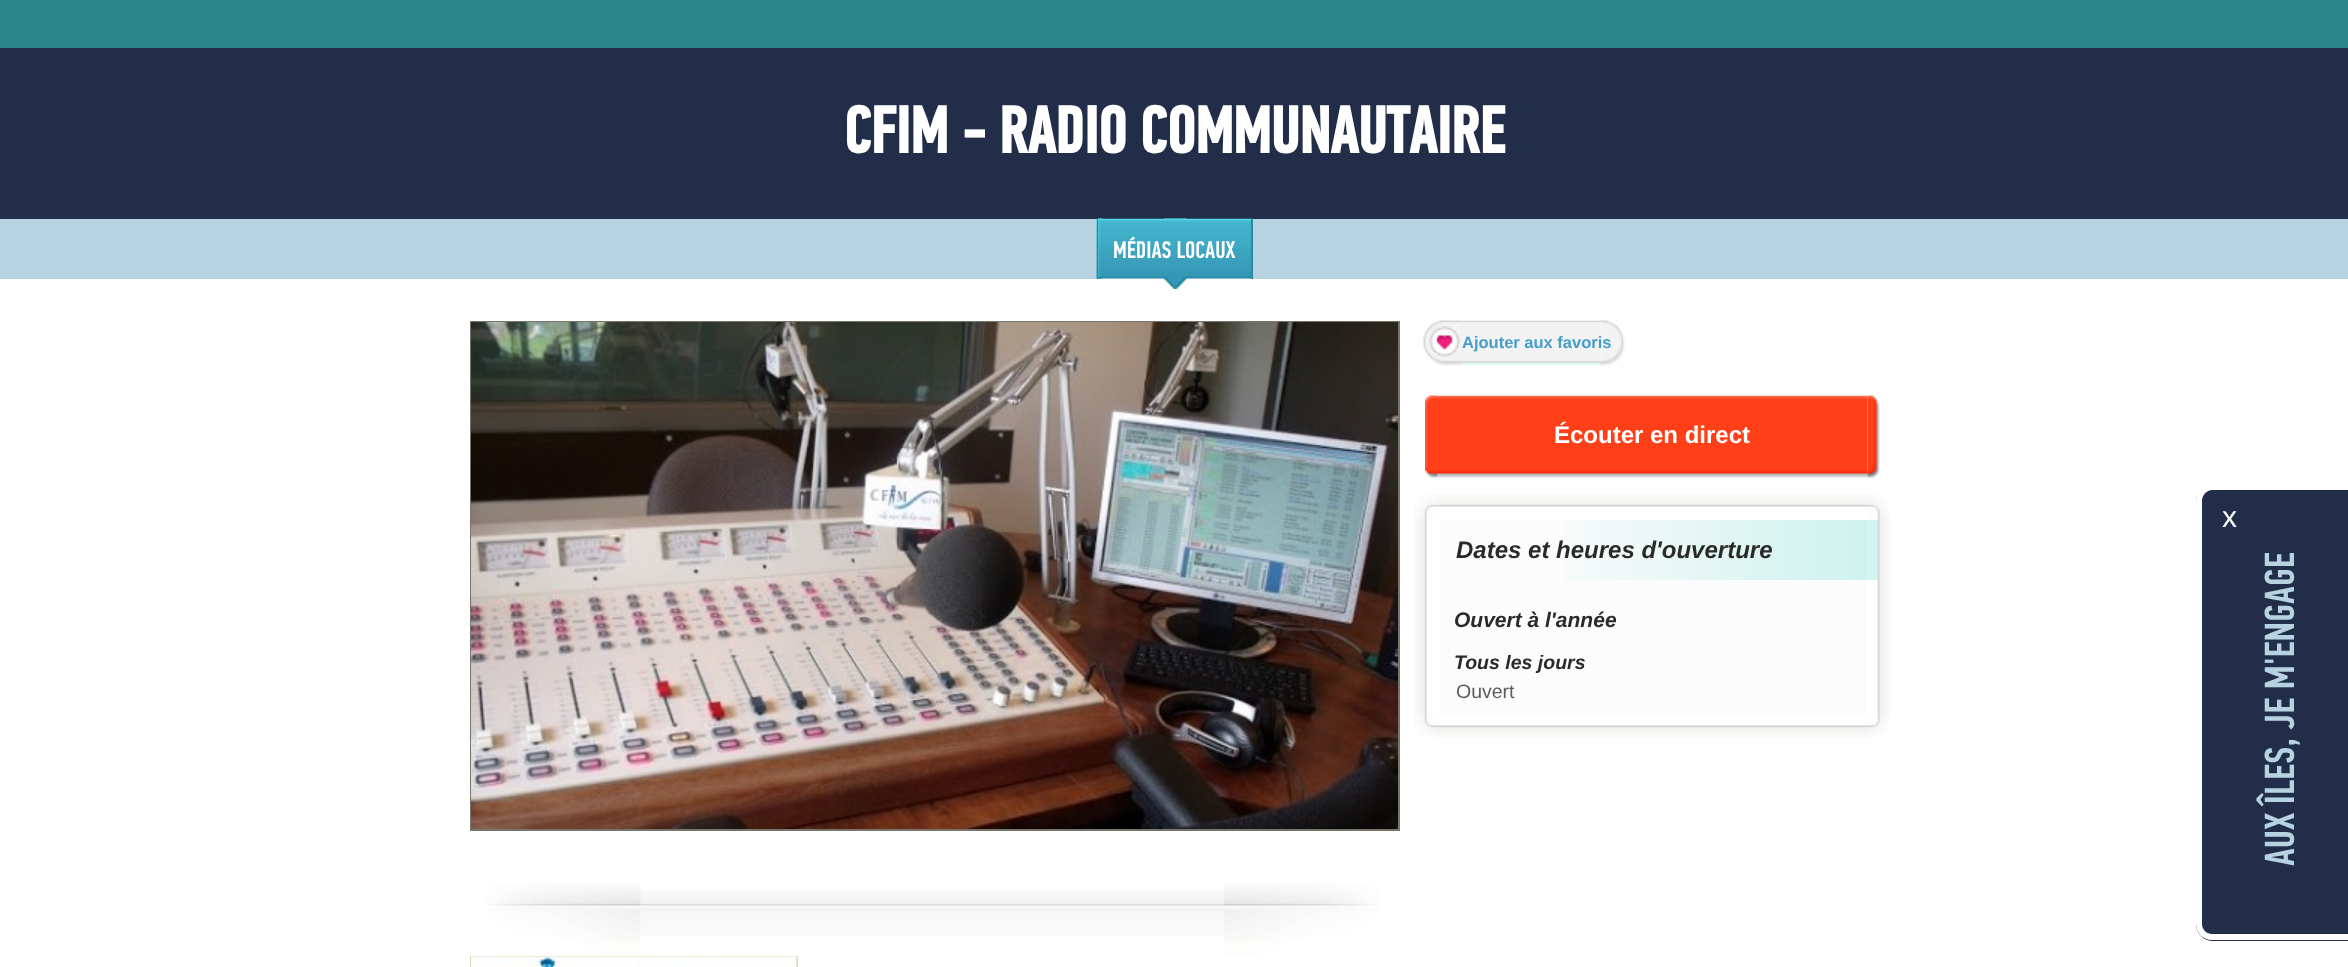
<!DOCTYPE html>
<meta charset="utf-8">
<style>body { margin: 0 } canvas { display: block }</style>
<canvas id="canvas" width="2348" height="967"></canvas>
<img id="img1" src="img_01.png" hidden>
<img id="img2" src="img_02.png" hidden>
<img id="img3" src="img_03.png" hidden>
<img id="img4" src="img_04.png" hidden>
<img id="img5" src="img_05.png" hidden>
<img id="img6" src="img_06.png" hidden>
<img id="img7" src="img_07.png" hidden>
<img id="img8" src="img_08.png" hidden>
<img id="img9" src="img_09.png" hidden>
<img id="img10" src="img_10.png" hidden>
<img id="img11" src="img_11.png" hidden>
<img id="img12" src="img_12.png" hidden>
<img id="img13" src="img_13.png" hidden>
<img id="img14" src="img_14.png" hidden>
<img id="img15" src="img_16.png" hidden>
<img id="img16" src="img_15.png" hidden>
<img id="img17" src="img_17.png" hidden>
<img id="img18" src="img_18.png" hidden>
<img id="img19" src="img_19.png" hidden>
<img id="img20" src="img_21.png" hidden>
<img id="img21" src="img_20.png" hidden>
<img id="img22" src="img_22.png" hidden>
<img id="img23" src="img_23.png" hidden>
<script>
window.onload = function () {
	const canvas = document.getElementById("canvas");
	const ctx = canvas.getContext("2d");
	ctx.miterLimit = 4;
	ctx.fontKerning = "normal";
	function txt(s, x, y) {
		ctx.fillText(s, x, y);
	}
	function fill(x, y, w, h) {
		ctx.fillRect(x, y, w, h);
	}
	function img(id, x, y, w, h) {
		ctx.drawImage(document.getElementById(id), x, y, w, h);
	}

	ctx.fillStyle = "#FFFFFF";
	fill(0, 0, 2348, 967);
	ctx.fillStyle = "#2B878B";
	fill(0, 0, 2348, 48);
	ctx.fillStyle = "#212D49";
	fill(0, 48, 2348, 171);
	ctx.fillStyle = "#B7D3E1";
	fill(0, 219, 2348, 60);
	img("img1", 1096, 218, 157, 61);
	ctx.fillStyle = "#278BA1";
	fill(1251, 219, 2, 60);
	fill(1097, 219, 2, 60);
	img("img2", 1098, 218, 5, 61);
	img("img3", 1164, 218, 23, 71);
	ctx.strokeStyle = "#757569";
	ctx.lineWidth = 2;
	ctx.strokeRect(471, 322, 928, 508);
	img("img4", 471, 322, 927, 507);
	img("img5", 486, 883, 155, 73);
	img("img6", 640, 890, 584, 46);
	img("img7", 1224, 883, 155, 73);
	ctx.strokeStyle = "#DDD9B6";
	ctx.strokeRect(471, 957, 326, 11);
	img("img8", 471, 956, 326, 11);
	img("img9", 1461, 320, 140, 46);
	img("img10", 1423, 320, 38, 46);
	img("img11", 1600, 320, 25, 46);
	img("img12", 1437, 395, 431, 83);
	img("img13", 1425, 395, 12, 83);
	img("img14", 1867, 395, 13, 83);
	img("img15", 1438, 494, 428, 13);
	img("img16", 1414, 494, 25, 25);
	img("img17", 1866, 494, 23, 25);
	img("img18", 1414, 518, 13, 196);
	ctx.fillStyle = "#FCFCFC";
	fill(1439, 519, 427, 195);
	img("img19", 1877, 518, 14, 196);
	img("img20", 1438, 725, 428, 13);
	img("img21", 1414, 713, 25, 24);
	img("img22", 1866, 713, 23, 24);
	img("img23", 1565, 520, 313, 60);
	ctx.fillStyle = "#212D49";
	ctx.beginPath();
	ctx.moveTo(2213, 485);
	ctx.lineTo(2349, 485);
	ctx.lineTo(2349, 941);
	ctx.lineTo(2213, 941);
	ctx.bezierCurveTo(2203.5, 941, 2196, 933.5, 2196, 924);
	ctx.lineTo(2196, 502);
	ctx.bezierCurveTo(2196, 492.5, 2203.5, 485, 2213, 485);
	ctx.closePath();
	ctx.fill();
	ctx.fillStyle = "#FFFFFF";
	ctx.beginPath();
	ctx.moveTo(2212, 484);
	ctx.lineTo(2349, 484);
	ctx.lineTo(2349, 940);
	ctx.lineTo(2212, 940);
	ctx.bezierCurveTo(2203, 940, 2196, 933, 2196, 924);
	ctx.lineTo(2196, 501);
	ctx.bezierCurveTo(2196, 492, 2203, 484, 2212, 484);
	ctx.closePath();
	ctx.moveTo(2212, 490);
	ctx.lineTo(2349, 490);
	ctx.lineTo(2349, 934);
	ctx.lineTo(2212, 934);
	ctx.bezierCurveTo(2207, 934, 2202, 930, 2202, 924);
	ctx.lineTo(2202, 501);
	ctx.bezierCurveTo(2202, 495, 2207, 490, 2212, 490);
	ctx.closePath();
	ctx.fill("evenodd");
	ctx.font = "bold 66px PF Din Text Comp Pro";
	txt("CFIM - RADIO COMMUNAUTAIRE", 844, 153);
	ctx.font = "500 24px PF Din Text Comp Pro";
	txt("MÉDIAS LOCAUX", 1113, 258);
	ctx.font = "bold 16.5px Liberation Sans";
	ctx.fillStyle = "#459DCB";
	txt("Ajouter aux favoris", 1462, 348);
	ctx.font = "bold 24px Liberation Sans";
	ctx.fillStyle = "#FFFFFF";
	txt("Écouter en direct", 1554, 443);
	ctx.font = "italic bold 24px Liberation Sans";
	ctx.fillStyle = "#2A2A29";
	txt("Dates et heures d'ouverture", 1456, 558);
	ctx.font = "italic bold 21px Liberation Sans";
	txt("Ouvert à l'année", 1454, 627);
	ctx.font = "italic bold 19.5px Liberation Sans";
	txt("Tous les jours", 1454, 669);
	ctx.font = "19.5px Liberation Sans";
	ctx.fillStyle = "#5D5D5D";
	txt("Ouvert", 1456, 698);
	ctx.font = "30px Liberation Sans";
	ctx.fillStyle = "#FFFFFF";
	txt("x", 2222, 527);
	ctx.font = "500 42px PF Din Text Comp Pro";
	ctx.fillStyle = "#B7D3E1";
	ctx.save();
	ctx.translate(2294, 866);
	ctx.rotate(-90 * Math.PI / 180);
	ctx.fillText("AUX ÎLES, JE M'ENGAGE", 0, 0);
	ctx.restore();
};
</script>
